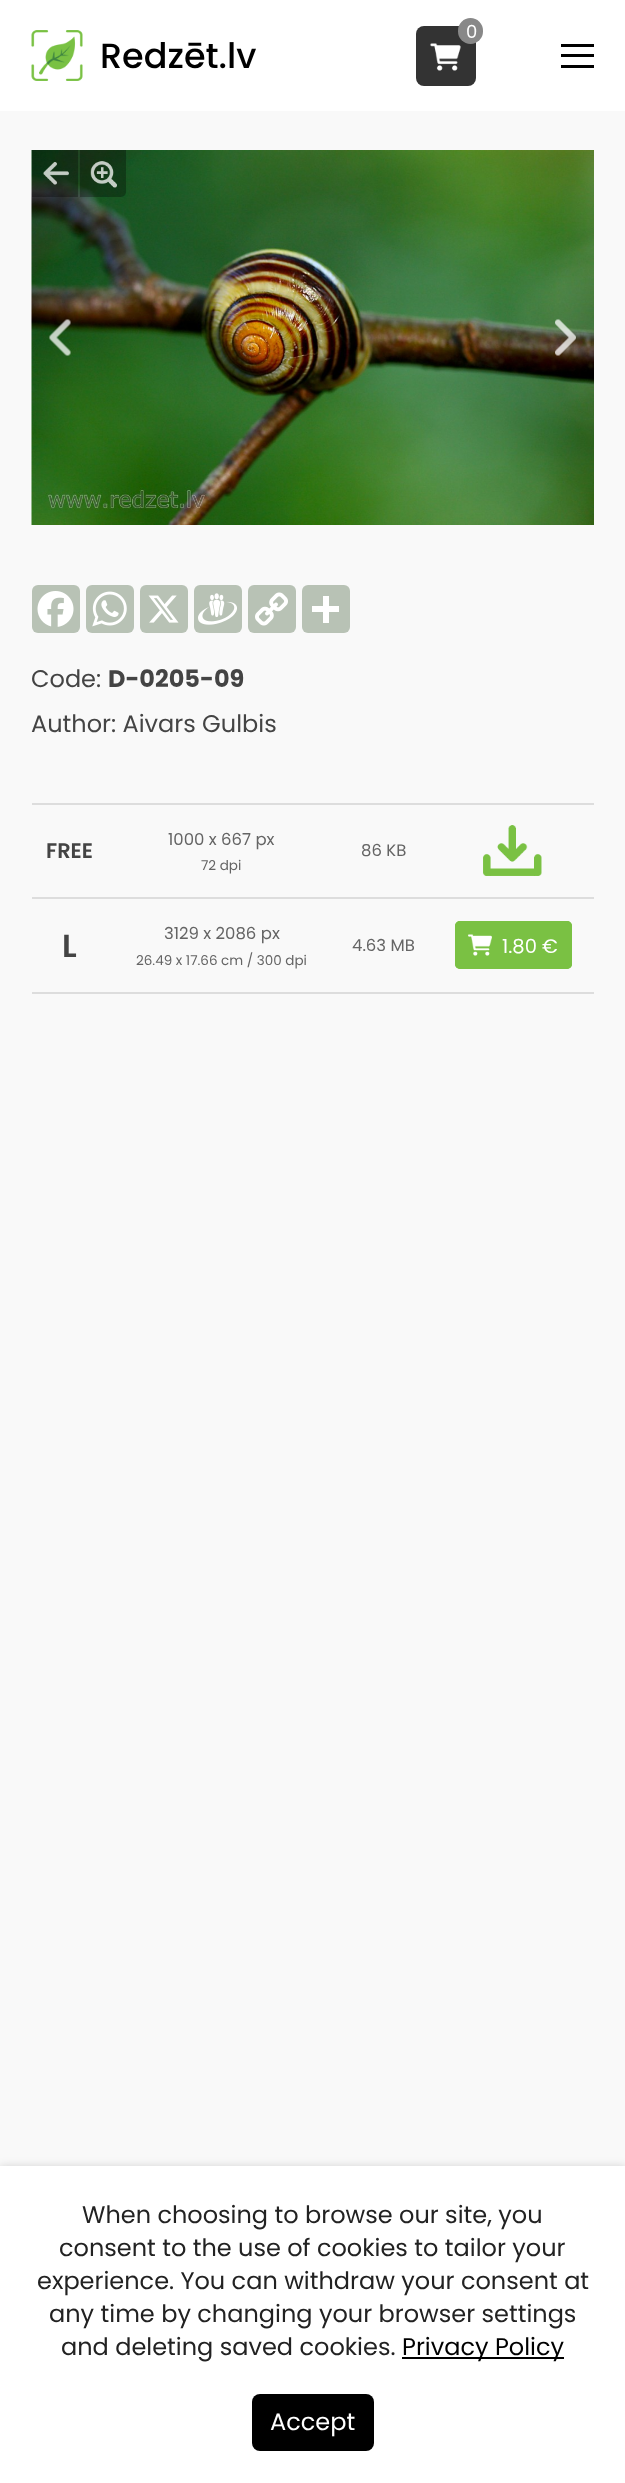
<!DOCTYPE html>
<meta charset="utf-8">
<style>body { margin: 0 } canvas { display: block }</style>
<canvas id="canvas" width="625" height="2483"></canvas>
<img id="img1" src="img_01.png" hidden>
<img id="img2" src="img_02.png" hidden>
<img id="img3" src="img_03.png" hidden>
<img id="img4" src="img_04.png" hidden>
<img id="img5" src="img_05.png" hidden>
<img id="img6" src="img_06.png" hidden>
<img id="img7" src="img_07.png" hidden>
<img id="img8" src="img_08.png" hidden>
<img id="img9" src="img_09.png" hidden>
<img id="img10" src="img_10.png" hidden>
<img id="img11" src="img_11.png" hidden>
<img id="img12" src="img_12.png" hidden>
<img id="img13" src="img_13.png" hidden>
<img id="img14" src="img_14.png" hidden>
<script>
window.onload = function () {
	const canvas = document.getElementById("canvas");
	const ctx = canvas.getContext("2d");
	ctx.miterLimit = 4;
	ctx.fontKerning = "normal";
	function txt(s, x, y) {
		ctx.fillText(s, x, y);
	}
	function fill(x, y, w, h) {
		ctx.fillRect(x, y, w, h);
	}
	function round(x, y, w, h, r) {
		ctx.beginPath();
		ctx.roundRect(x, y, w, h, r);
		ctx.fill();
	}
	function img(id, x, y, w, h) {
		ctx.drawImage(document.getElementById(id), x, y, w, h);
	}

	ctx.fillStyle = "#F9F9F9";
	fill(0, 0, 625, 2483);
	ctx.fillStyle = "#FFFFFF";
	fill(0, 0, 625, 111);
	ctx.fillStyle = "#333333";
	round(416, 26, 60, 60, 8);
	img("img1", 430, 43, 31, 28);
	ctx.fillStyle = "#888888";
	round(458, 18, 25, 26, 12.5);
	img("img2", 31, 30, 52, 51);
	ctx.fillStyle = "#000000";
	fill(561, 44, 33, 3);
	fill(561, 54, 33, 3);
	fill(561, 65, 33, 3);
	img("img3", 31, 150, 563, 375);
	ctx.fillStyle = "rgba(0, 0, 0, 0.3)";
	fill(32, 150, 46, 47);
	img("img4", 43, 162, 26, 23);
	ctx.beginPath();
	ctx.roundRect(80, 150, 46, 47, [0, 0, 5, 0]);
	ctx.fill();
	img("img5", 90, 161, 27, 27);
	img("img6", 49, 319, 22, 37);
	img("img7", 555, 319, 21, 37);
	ctx.fillStyle = "#B8C2B5";
	round(32, 585, 48, 48, 6);
	img("img8", 37, 591, 37, 36);
	round(86, 585, 48, 48, 6);
	img("img9", 92, 591, 35, 36);
	round(140, 585, 48, 48, 6);
	img("img10", 148, 595, 31, 28);
	round(194, 585, 48, 48, 6);
	img("img11", 198, 593, 39, 32);
	round(248, 585, 48, 48, 6);
	img("img12", 255, 592, 33, 34);
	round(302, 585, 48, 48, 6);
	ctx.fillStyle = "#FFFFFF";
	fill(323, 596, 6, 27);
	fill(312, 606, 27, 6);
	ctx.fillStyle = "#DDDDDD";
	fill(32, 803, 562, 2);
	fill(32, 897, 562, 2);
	img("img13", 483, 825, 59, 51);
	fill(32, 992, 562, 2);
	ctx.fillStyle = "#7AC143";
	round(455, 921, 117, 48, 5);
	img("img14", 468, 934, 24, 22);
	ctx.beginPath();
	ctx.roundRect(456, 922, 115, 46, 4);
	ctx.strokeStyle = "#7AC143";
	ctx.lineWidth = 2;
	ctx.stroke();
	ctx.fillStyle = "rgba(0, 0, 0, 0.15)";
	ctx.filter = "blur(4px)";
	ctx.beginPath();
	ctx.rect(0, 2166, 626, 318);
	ctx.fill();
	ctx.filter = "none";
	ctx.fillStyle = "#FFFFFF";
	fill(0, 2166, 625, 317);
	ctx.fillStyle = "#000000";
	fill(402, 2357, 162, 2);
	round(252, 2394, 122, 57, 8);
	ctx.font = "18px Poppins";
	ctx.fillStyle = "#FFFFFF";
	txt("0", 466, 38);
	ctx.font = "500 35px Poppins";
	ctx.fillStyle = "#000000";
	txt("Redzēt.lv", 100, 68);
	ctx.font = "24px Poppins";
	ctx.fillStyle = "#444444";
	txt("Code:", 31, 687);
	ctx.font = "bold 24px Poppins";
	txt("D-0205-09", 108, 687);
	ctx.font = "24px Poppins";
	txt("Author: Aivars Gulbis", 31, 732);
	ctx.font = "600 21px Poppins";
	txt("FREE", 46, 858);
	ctx.font = "16.5px Poppins";
	ctx.fillStyle = "#656565";
	txt("1000 x 667 px", 168, 845);
	ctx.font = "13.5px Poppins";
	txt("72 dpi", 201, 870);
	ctx.font = "16.5px Poppins";
	txt("86 KB", 361, 856);
	ctx.font = "600 32px Poppins";
	ctx.fillStyle = "#444444";
	txt("L", 62, 957);
	ctx.font = "16.5px Poppins";
	ctx.fillStyle = "#656565";
	txt("3129 x 2086 px", 164, 939);
	ctx.font = "13.5px Poppins";
	txt("26.49 x 17.66 cm / 300 dpi", 136, 965);
	ctx.font = "16.5px Poppins";
	txt("4.63 MB", 352, 951);
	ctx.font = "19.5px Poppins";
	ctx.fillStyle = "#FFFFFF";
	txt("1.80 €", 502, 953);
	ctx.font = "24px Poppins";
	ctx.fillStyle = "#222222";
	txt("When choosing to browse our site, you", 82, 2223);
	txt("consent to the use of cookies to tailor your", 59, 2256);
	txt("experience. You can withdraw your consent at", 37, 2289);
	txt("any time by changing your browser settings", 49, 2322);
	txt("and deleting saved cookies.", 61, 2355);
	ctx.fillStyle = "#000000";
	txt("Privacy Policy", 402, 2355);
	ctx.fillStyle = "#FFFFFF";
	txt("Accept", 270, 2430);
};
</script>
